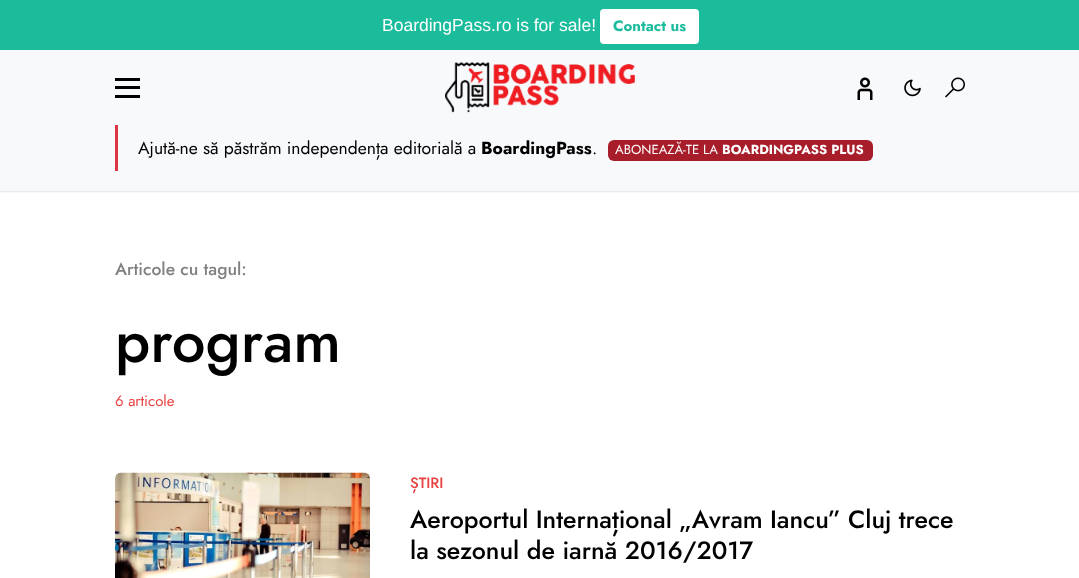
<!DOCTYPE html>
<meta charset="utf-8">
<style>body { margin: 0 } canvas { display: block }</style>
<canvas id="canvas" width="1079" height="578"></canvas>
<img id="img1" src="img_01.png" hidden>
<img id="img2" src="img_02.png" hidden>
<img id="img3" src="img_03.png" hidden>
<img id="img4" src="img_04.png" hidden>
<img id="img5" src="img_05.png" hidden>
<script>
window.onload = function () {
	const canvas = document.getElementById("canvas");
	const ctx = canvas.getContext("2d");
	ctx.miterLimit = 4;
	ctx.fontKerning = "normal";
	function txt(s, x, y) {
		ctx.fillText(s, x, y);
	}
	function fill(x, y, w, h) {
		ctx.fillRect(x, y, w, h);
	}
	function round(x, y, w, h, r) {
		ctx.beginPath();
		ctx.roundRect(x, y, w, h, r);
		ctx.fill();
	}
	function img(id, x, y, w, h) {
		ctx.drawImage(document.getElementById(id), x, y, w, h);
	}

	ctx.fillStyle = "#FFFFFF";
	fill(0, 0, 1079, 578);
	ctx.fillStyle = "#1ABC9C";
	fill(0, 0, 1079, 50);
	ctx.fillStyle = "#FFFFFF";
	round(600, 9, 99, 35, 4);
	ctx.fillStyle = "#F8F9FB";
	fill(0, 50, 1079, 143);
	ctx.fillStyle = "#E9ECEF";
	fill(0, 191, 1079, 1);
	ctx.fillStyle = "#000000";
	fill(115, 78, 25, 3);
	fill(115, 86, 25, 3);
	fill(115, 95, 25, 3);
	img("img1", 445, 62, 190, 51);
	img("img2", 857, 77, 16, 23);
	img("img3", 904, 79, 17, 18);
	img("img4", 945, 77, 20, 21);
	ctx.fillStyle = "#DC3545";
	fill(115, 125, 3, 46);
	ctx.fillStyle = "#A71D2A";
	round(608, 140, 265, 21, 6);
	img("img5", 115, 472, 255, 106);
	ctx.font = "17.5px Liberation Sans";
	ctx.fillStyle = "#FFFFFF";
	txt("BoardingPass.ro is for sale!", 382, 31);
	ctx.font = "bold 15px Jost";
	ctx.fillStyle = "#1ABC9C";
	txt("Contact us", 613, 31);
	ctx.font = "17.5px Jost";
	ctx.fillStyle = "#000000";
	txt("Ajută-ne să păstrăm independența editorială a", 138, 154);
	ctx.font = "bold 17.5px Jost";
	txt("BoardingPass", 481, 154);
	ctx.font = "17.5px Jost";
	txt(".", 592, 154);
	ctx.font = "13.1px Jost";
	ctx.fillStyle = "#FFFFFF";
	txt("ABONEAZĂ-TE LA", 615, 154);
	ctx.font = "bold 13.1px Jost";
	txt("BOARDINGPASS PLUS", 722, 154);
	ctx.font = "500 17.5px Jost";
	ctx.fillStyle = "#818181";
	txt("Articole cu tagul:", 115, 275);
	ctx.font = "500 60px Jost";
	ctx.fillStyle = "#000000";
	txt("program", 115, 362);
	ctx.font = "15px Jost";
	ctx.fillStyle = "#E84141";
	txt("6 articole", 115, 406);
	ctx.font = "500 15px Jost";
	txt("ȘTIRI", 410, 488);
	ctx.wordSpacing = "-0.25px";
	ctx.font = "500 25px Jost";
	ctx.fillStyle = "#000000";
	txt("Aeroportul Internațional „Avram Iancu” Cluj trece", 410, 528);
	ctx.wordSpacing = "0px";
	txt("la sezonul de iarnă 2016/2017", 410, 559);
};
</script>
